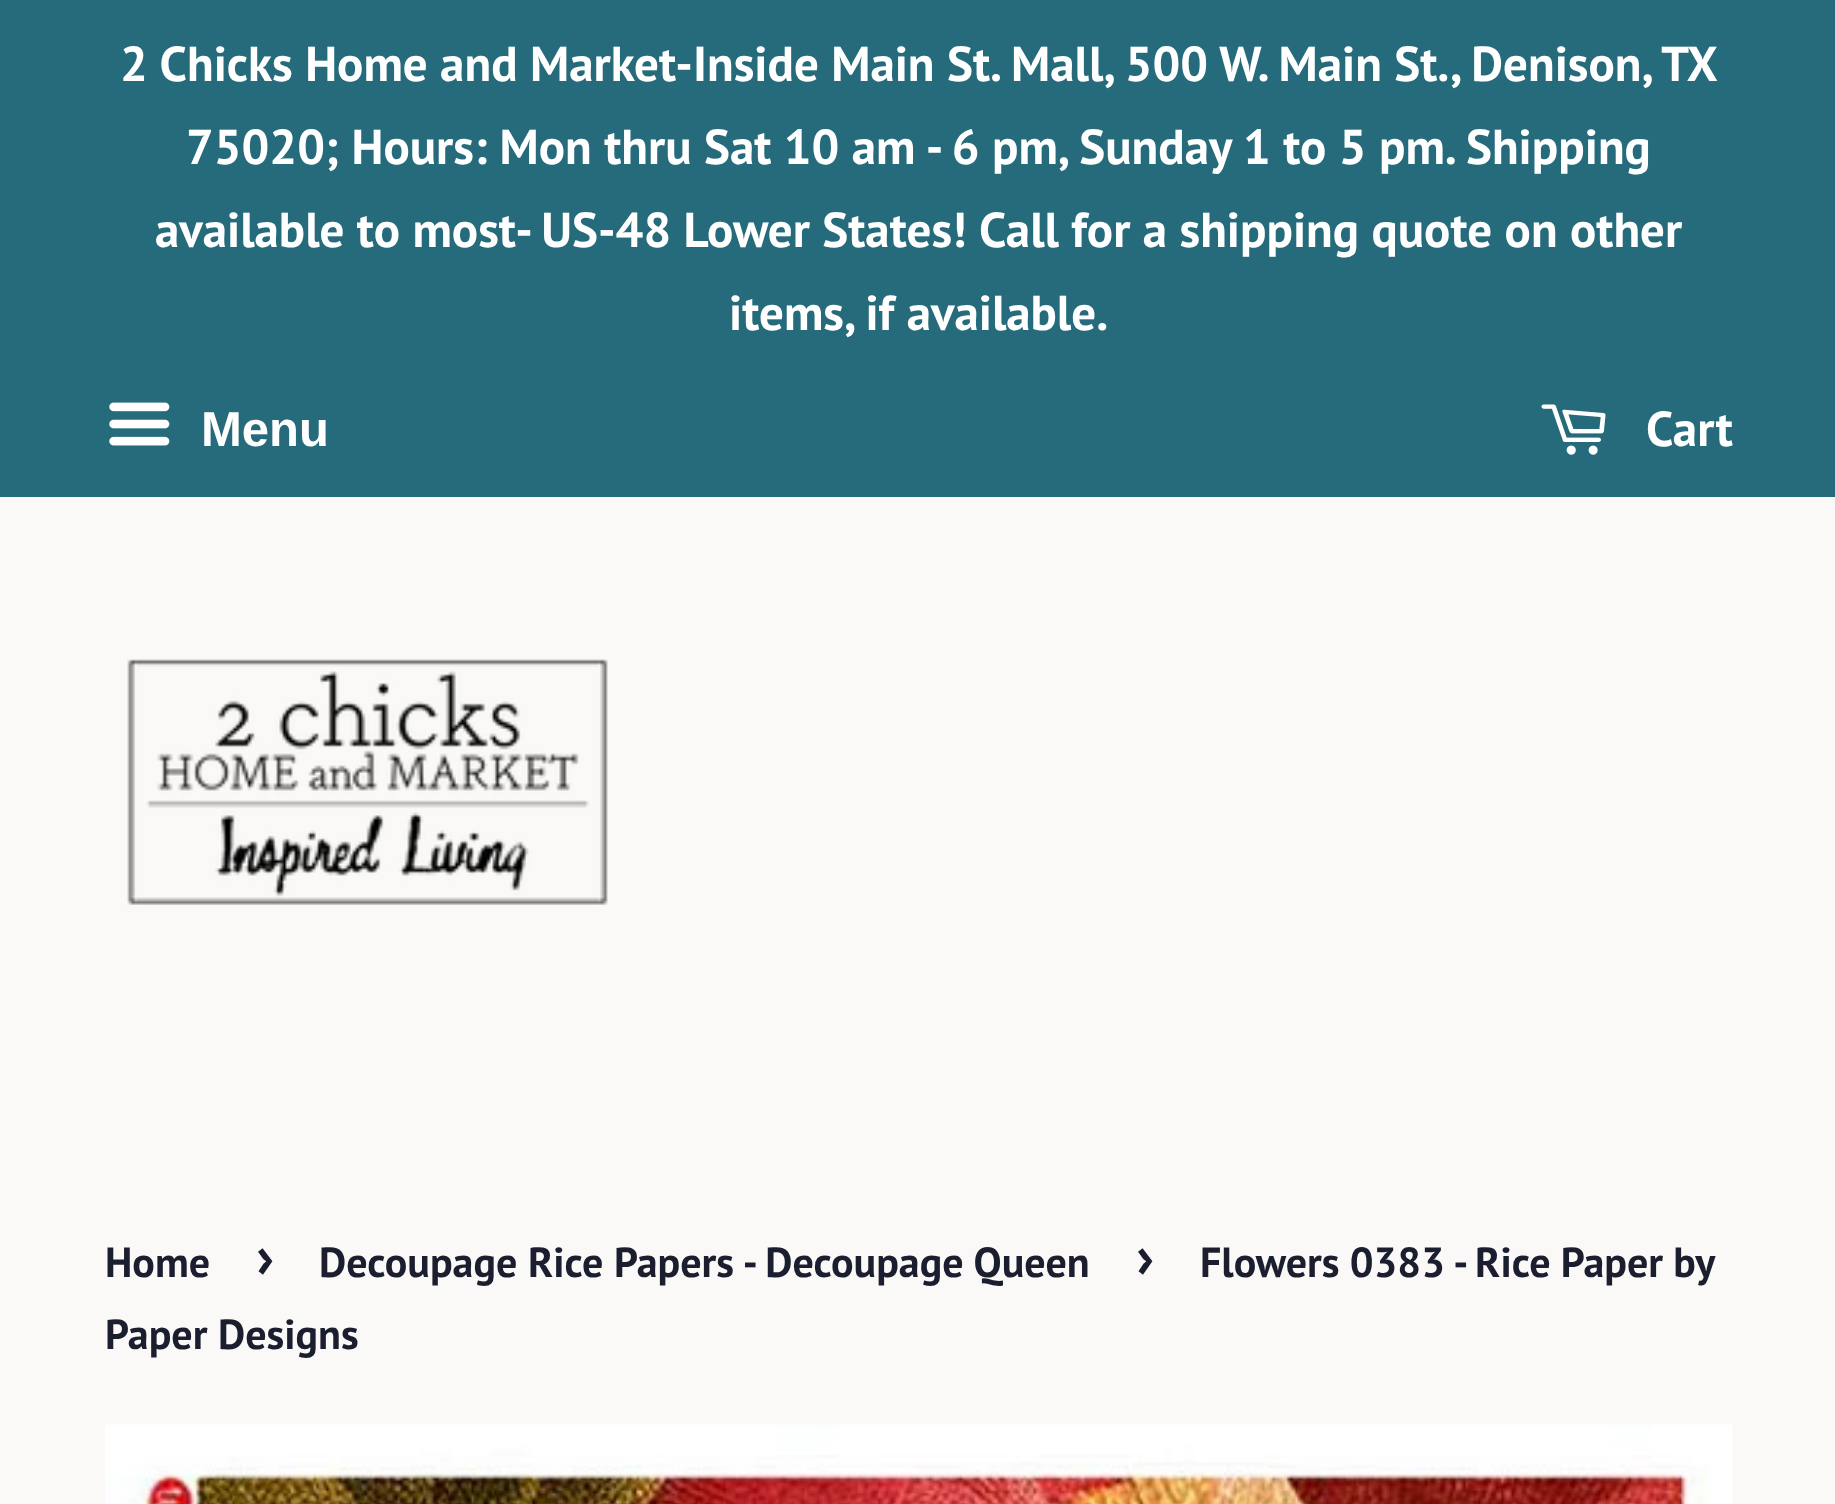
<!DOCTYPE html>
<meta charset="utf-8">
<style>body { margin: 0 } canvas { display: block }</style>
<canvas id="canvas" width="1835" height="1504"></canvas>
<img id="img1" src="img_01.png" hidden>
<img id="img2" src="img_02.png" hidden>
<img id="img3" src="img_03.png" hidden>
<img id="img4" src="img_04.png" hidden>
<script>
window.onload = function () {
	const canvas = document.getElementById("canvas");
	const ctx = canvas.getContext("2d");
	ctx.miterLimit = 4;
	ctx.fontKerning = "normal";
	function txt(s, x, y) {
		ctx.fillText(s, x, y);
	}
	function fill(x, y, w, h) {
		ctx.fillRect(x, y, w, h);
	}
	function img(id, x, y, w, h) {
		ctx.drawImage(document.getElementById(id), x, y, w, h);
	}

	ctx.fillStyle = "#FAF9F7";
	fill(0, 0, 1835, 1504);
	ctx.fillStyle = "#256B7B";
	fill(0, 0, 1835, 497);
	img("img1", 109, 402, 61, 44);
	img("img2", 1541, 404, 65, 51);
	img("img3", 127, 659, 481, 246);
	img("img4", 105, 1424, 1628, 80);
	ctx.font = "bold 49px PT Sans";
	ctx.fillStyle = "#FFFFFF";
	txt("2 Chicks Home and Market-Inside Main St. Mall, 500 W. Main St., Denison, TX", 120, 81);
	txt("75020; Hours: Mon thru Sat 10 am - 6 pm, Sunday 1 to 5 pm. Shipping", 186, 164);
	txt("available to most- US-48 Lower States!", 155, 247);
	txt("Call for a shipping quote on other", 979, 247);
	txt("items, if available.", 729, 330);
	ctx.font = "bold 49px Liberation Sans";
	txt("Menu", 201, 446);
	ctx.font = "bold 49px PT Sans";
	txt("Cart", 1646, 446);
	ctx.font = "bold 42px PT Sans";
	ctx.fillStyle = "#1B1E2F";
	txt("Home", 105, 1277);
	ctx.font = "bold 59px PT Sans";
	txt("›", 256, 1277);
	ctx.font = "bold 42px PT Sans";
	txt("Decoupage Rice Papers - Decoupage Queen", 319, 1277);
	ctx.font = "bold 59px PT Sans";
	txt("›", 1136, 1277);
	ctx.wordSpacing = "-0.5px";
	ctx.font = "bold 42px PT Sans";
	txt("Flowers 0383 - Rice Paper by", 1200, 1277);
	ctx.wordSpacing = "0px";
	txt("Paper Designs", 105, 1349);
};
</script>
